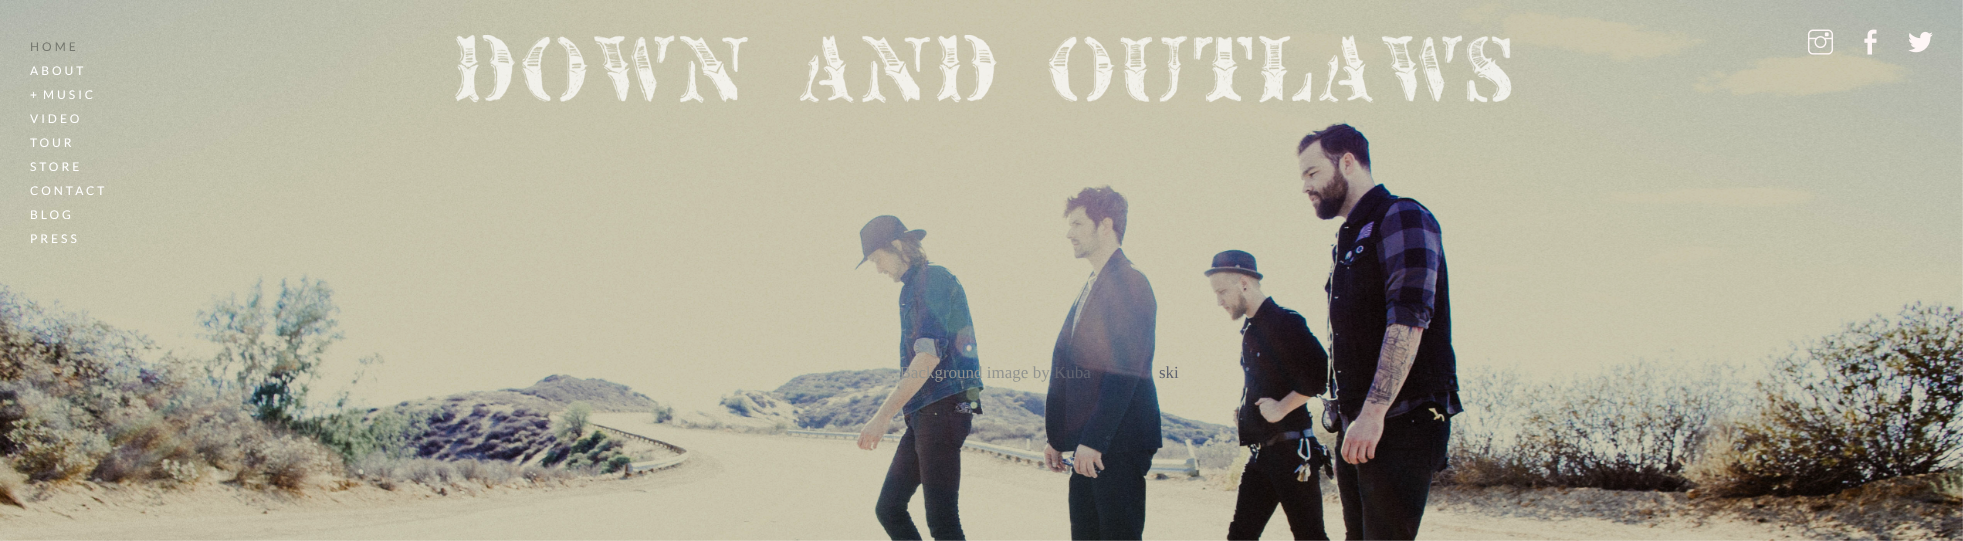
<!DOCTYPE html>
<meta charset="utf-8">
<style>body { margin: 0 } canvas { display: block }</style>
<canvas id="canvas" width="1963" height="541"></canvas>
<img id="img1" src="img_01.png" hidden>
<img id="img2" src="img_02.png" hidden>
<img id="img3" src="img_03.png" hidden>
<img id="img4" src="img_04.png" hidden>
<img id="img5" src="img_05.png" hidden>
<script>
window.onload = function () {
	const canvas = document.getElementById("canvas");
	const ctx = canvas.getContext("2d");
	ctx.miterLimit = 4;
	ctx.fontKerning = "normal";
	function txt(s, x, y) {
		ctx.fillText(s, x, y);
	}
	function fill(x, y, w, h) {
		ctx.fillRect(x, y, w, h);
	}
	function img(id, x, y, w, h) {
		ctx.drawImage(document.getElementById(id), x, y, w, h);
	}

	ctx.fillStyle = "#FFFFFF";
	fill(0, 0, 1963, 541);
	img("img1", 0, 0, 1963, 541);
	img("img2", 1808, 29, 25, 26);
	img("img3", 1864, 29, 13, 26);
	img("img4", 1908, 31, 25, 22);
	img("img5", 455, 35, 1057, 68);
	ctx.letterSpacing = "3px";
	ctx.font = "12px Lato";
	ctx.fillStyle = "#74776E";
	txt("HOME", 30, 51);
	ctx.fillStyle = "#FFFFFF";
	txt("ABOUT", 30, 75);
	txt("+", 30, 99);
	txt("MUSIC", 43, 99);
	txt("VIDEO", 30, 123);
	txt("TOUR", 30, 147);
	txt("STORE", 30, 171);
	txt("CONTACT", 30, 195);
	txt("BLOG", 30, 219);
	txt("PRESS", 30, 243);
	ctx.letterSpacing = "0px";
	ctx.font = "17px Liberation Serif";
	ctx.fillStyle = "#91938F";
	txt(". Background image by", 891, 378);
	ctx.fillStyle = "#616470";
	txt("Kuba", 1054, 378);
	txt("ski", 1159, 378);
};
</script>
